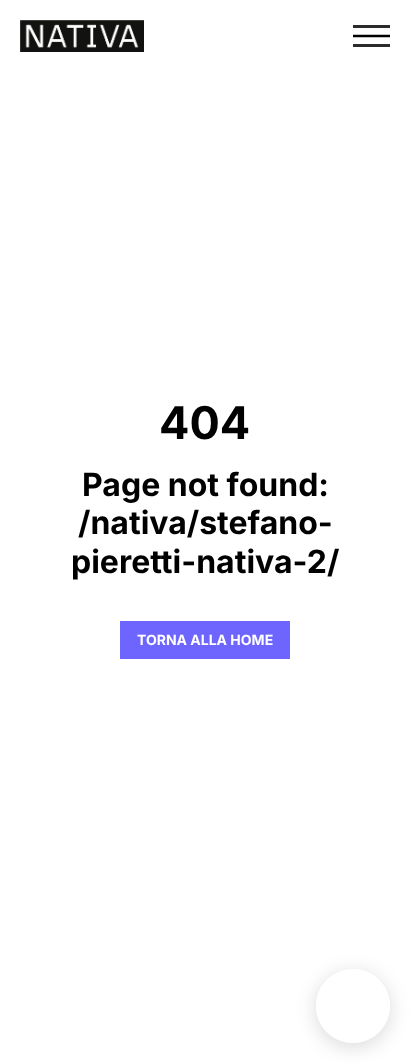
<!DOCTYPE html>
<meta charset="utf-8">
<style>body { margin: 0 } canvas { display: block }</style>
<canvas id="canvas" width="410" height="1063"></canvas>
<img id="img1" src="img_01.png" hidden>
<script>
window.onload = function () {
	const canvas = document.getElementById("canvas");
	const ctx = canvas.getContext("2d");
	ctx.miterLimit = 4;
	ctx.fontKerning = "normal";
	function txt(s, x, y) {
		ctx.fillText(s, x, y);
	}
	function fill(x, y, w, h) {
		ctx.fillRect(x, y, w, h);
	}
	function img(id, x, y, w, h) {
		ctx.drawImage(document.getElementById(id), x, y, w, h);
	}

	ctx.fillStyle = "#FFFFFF";
	fill(0, 0, 410, 1063);
	img("img1", 20, 20, 124, 32);
	ctx.fillStyle = "#2B2B2B";
	fill(353, 25, 37, 3);
	ctx.beginPath();
	ctx.moveTo(353, 36);
	ctx.lineTo(390, 36);
	ctx.strokeStyle = "#000000";
	ctx.lineWidth = 2.5;
	ctx.stroke();
	fill(353, 44, 37, 3);
	ctx.fillStyle = "#6E65FF";
	fill(120, 621, 170, 38);
	ctx.save();
	ctx.beginPath();
	ctx.moveTo(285, 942);
	ctx.lineTo(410, 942);
	ctx.lineTo(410, 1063);
	ctx.lineTo(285, 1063);
	ctx.closePath();
	ctx.moveTo(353, 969);
	ctx.bezierCurveTo(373.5, 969, 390, 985.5, 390, 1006);
	ctx.bezierCurveTo(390, 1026.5, 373.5, 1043, 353, 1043);
	ctx.bezierCurveTo(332.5, 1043, 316, 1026.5, 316, 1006);
	ctx.bezierCurveTo(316, 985.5, 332.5, 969, 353, 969);
	ctx.closePath();
	ctx.clip("evenodd");
	ctx.fillStyle = "rgba(0, 0, 0, 0.15)";
	ctx.filter = "blur(10px)";
	ctx.beginPath();
	ctx.roundRect(316, 973, 74, 74, 37);
	ctx.fill();
	ctx.filter = "none";
	ctx.restore();
	ctx.beginPath();
	ctx.arc(353, 1006, 36.5, 0, Math.PI * 2);
	ctx.strokeStyle = "#FFFFFF";
	ctx.lineWidth = 1;
	ctx.stroke();
	ctx.font = "bold 45px Inter";
	ctx.fillStyle = "#000000";
	txt("404", 159, 439);
	ctx.font = "bold 32px Inter";
	txt("Page not found:", 82, 496);
	txt("/nativa/stefano-", 78, 534);
	txt("pieretti-nativa-2/", 71, 573);
	ctx.font = "bold 14px Inter";
	ctx.fillStyle = "#FFFFFF";
	txt("TORNA ALLA HOME", 137, 645);
};
</script>
